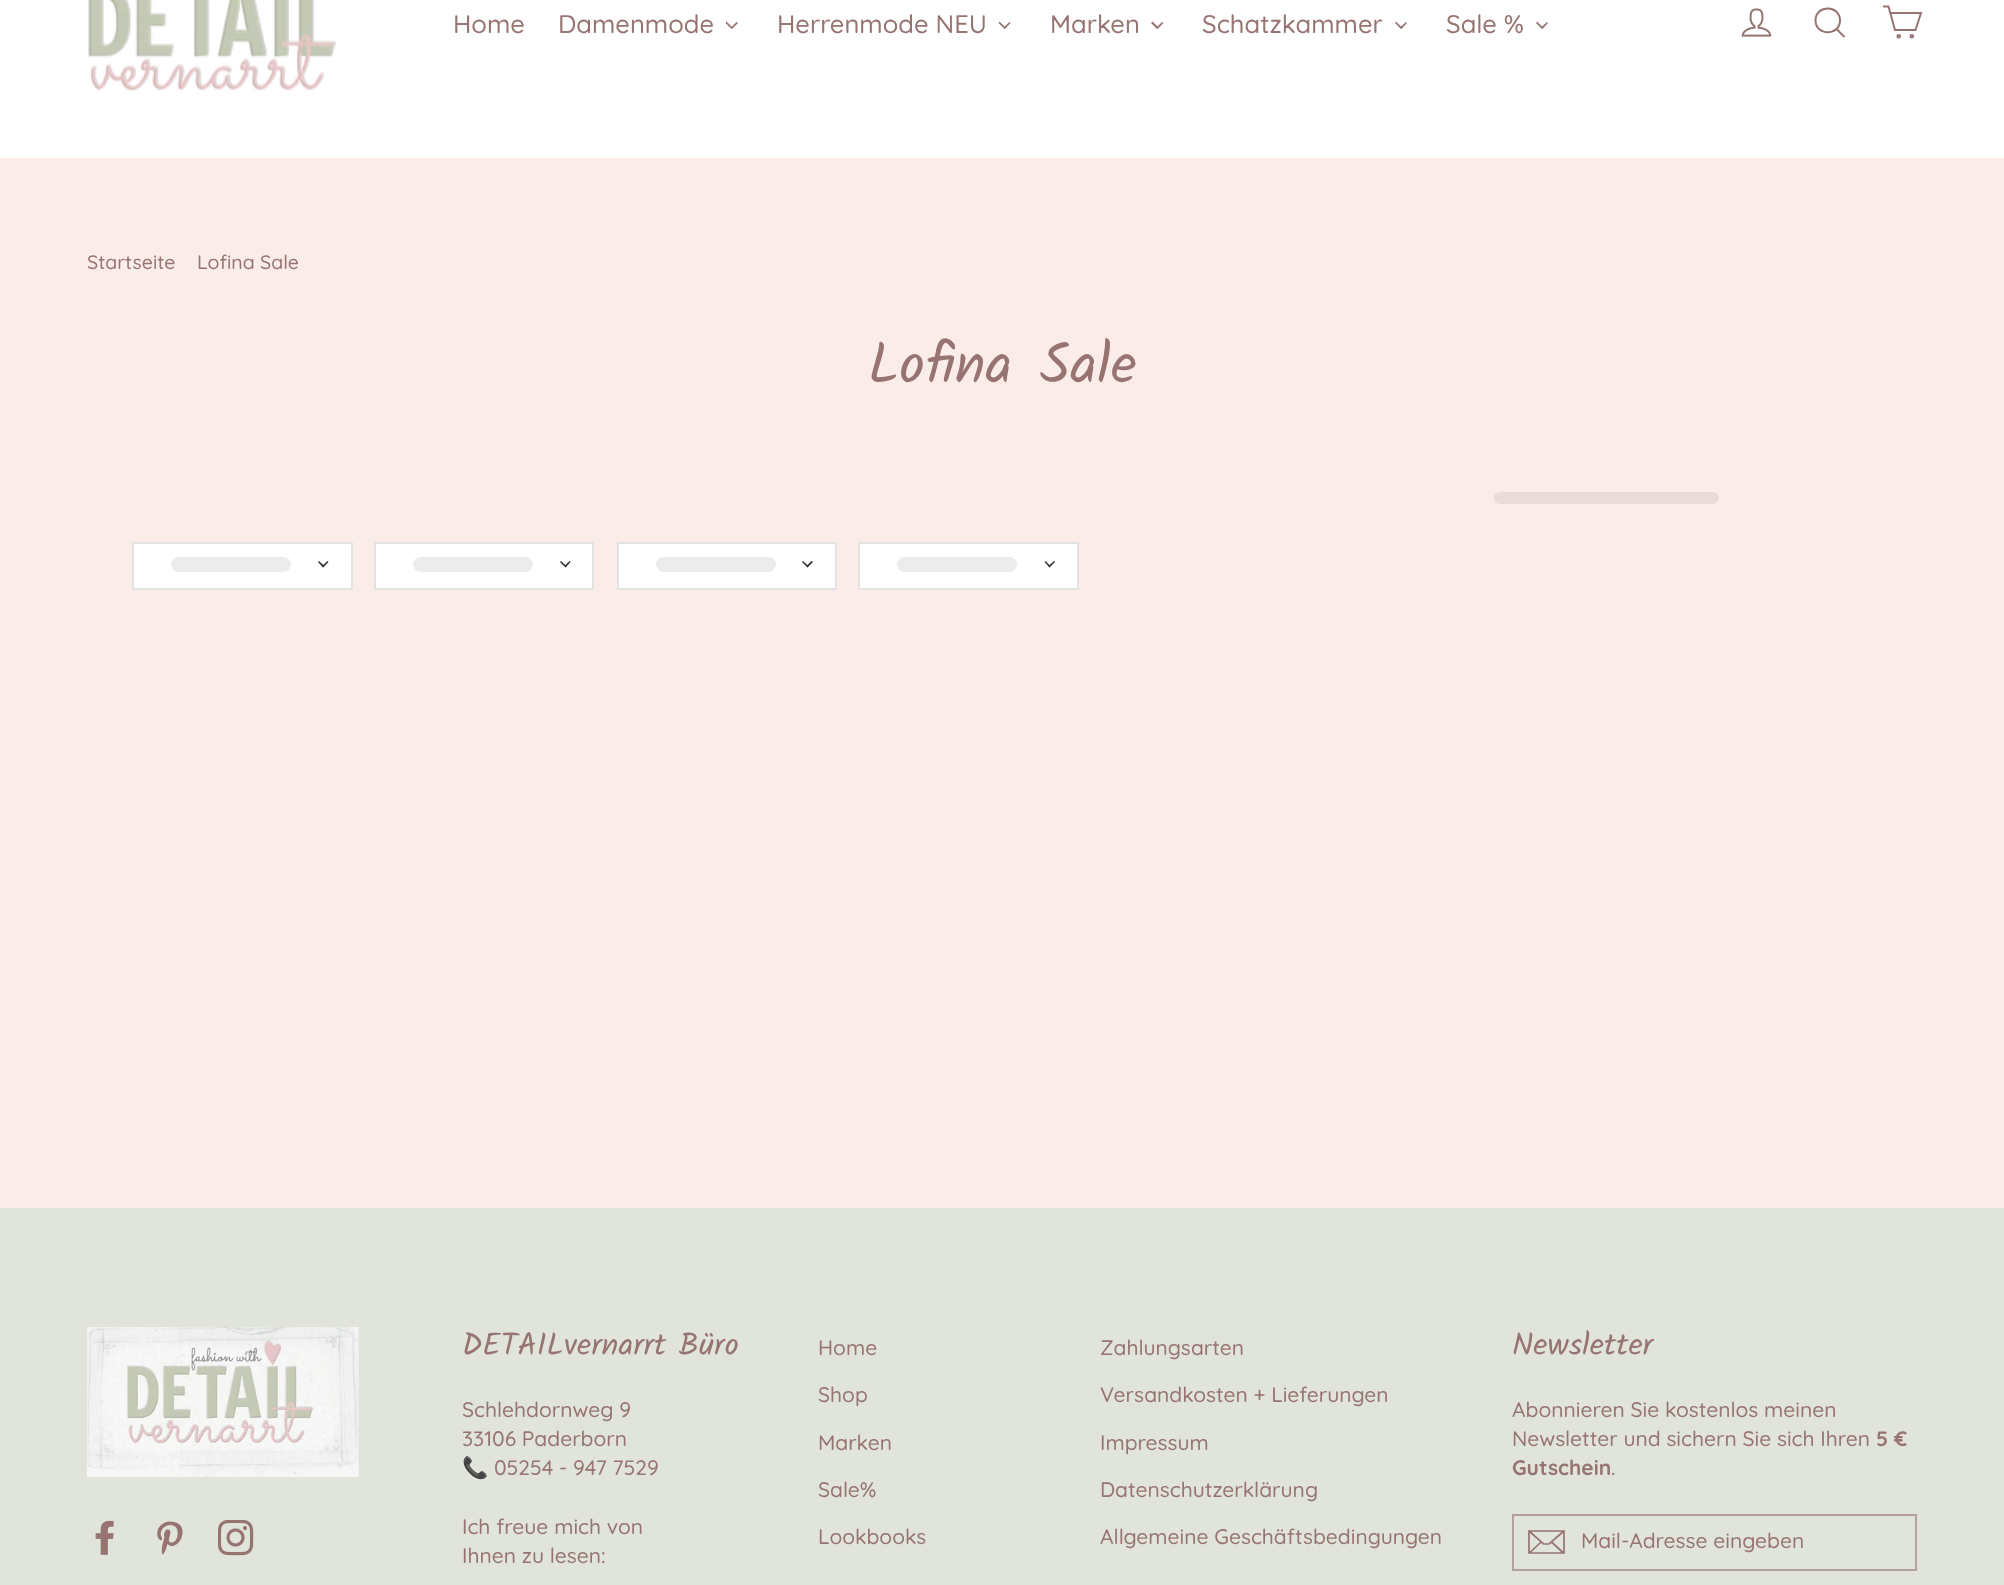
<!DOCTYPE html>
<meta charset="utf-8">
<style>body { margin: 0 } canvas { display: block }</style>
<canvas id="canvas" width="2004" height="1585"></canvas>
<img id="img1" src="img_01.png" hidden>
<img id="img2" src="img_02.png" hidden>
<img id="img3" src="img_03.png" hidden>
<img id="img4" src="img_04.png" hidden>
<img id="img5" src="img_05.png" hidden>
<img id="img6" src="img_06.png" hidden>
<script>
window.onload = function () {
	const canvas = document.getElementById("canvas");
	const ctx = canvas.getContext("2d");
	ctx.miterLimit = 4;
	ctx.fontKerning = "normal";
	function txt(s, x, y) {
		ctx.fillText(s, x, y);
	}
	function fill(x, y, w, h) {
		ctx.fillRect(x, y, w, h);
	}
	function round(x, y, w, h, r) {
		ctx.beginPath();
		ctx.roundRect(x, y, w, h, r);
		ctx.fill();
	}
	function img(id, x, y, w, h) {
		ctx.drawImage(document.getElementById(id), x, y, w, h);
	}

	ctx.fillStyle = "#FAECE9";
	fill(0, 0, 2004, 1585);
	ctx.fillStyle = "#FFFFFF";
	fill(0, 0, 2004, 158);
	img("img1", 88, 0, 249, 91);
	ctx.fillStyle = "#977472";
	ctx.beginPath();
	ctx.moveTo(736.5, 22);
	ctx.lineTo(738, 23);
	ctx.lineTo(732, 29);
	ctx.lineTo(731, 27.5);
	ctx.closePath();
	ctx.fill();
	ctx.beginPath();
	ctx.moveTo(726.5, 21.5);
	ctx.lineTo(732.5, 27.5);
	ctx.lineTo(731.5, 29);
	ctx.lineTo(725.5, 23);
	ctx.closePath();
	ctx.fill();
	ctx.beginPath();
	ctx.moveTo(1009.5, 22);
	ctx.lineTo(1010.5, 23);
	ctx.lineTo(1005, 29);
	ctx.lineTo(1003.5, 27.5);
	ctx.closePath();
	ctx.fill();
	ctx.beginPath();
	ctx.moveTo(999.5, 21.5);
	ctx.lineTo(1005.5, 27.5);
	ctx.lineTo(1004.5, 29);
	ctx.lineTo(998.5, 23);
	ctx.closePath();
	ctx.fill();
	ctx.beginPath();
	ctx.moveTo(1162, 22);
	ctx.lineTo(1163.5, 23);
	ctx.lineTo(1157.5, 29);
	ctx.lineTo(1156.5, 27.5);
	ctx.closePath();
	ctx.fill();
	ctx.beginPath();
	ctx.moveTo(1152.5, 21.5);
	ctx.lineTo(1158.5, 27.5);
	ctx.lineTo(1157, 29);
	ctx.lineTo(1151, 23);
	ctx.closePath();
	ctx.fill();
	ctx.beginPath();
	ctx.moveTo(1406, 22);
	ctx.lineTo(1407, 23);
	ctx.lineTo(1401.5, 29);
	ctx.lineTo(1400, 27.5);
	ctx.closePath();
	ctx.fill();
	ctx.beginPath();
	ctx.moveTo(1396, 21.5);
	ctx.lineTo(1402, 27.5);
	ctx.lineTo(1401, 29);
	ctx.lineTo(1395, 23);
	ctx.closePath();
	ctx.fill();
	ctx.beginPath();
	ctx.moveTo(1547, 22);
	ctx.lineTo(1548, 23);
	ctx.lineTo(1542.5, 29);
	ctx.lineTo(1541, 27.5);
	ctx.closePath();
	ctx.fill();
	ctx.beginPath();
	ctx.moveTo(1537, 21.5);
	ctx.lineTo(1543, 27.5);
	ctx.lineTo(1542, 29);
	ctx.lineTo(1536, 23);
	ctx.closePath();
	ctx.fill();
	img("img2", 1741, 8, 31, 29);
	ctx.beginPath();
	ctx.moveTo(1840, 20.5);
	ctx.bezierCurveTo(1840, 36, 1815.5, 36, 1815.5, 20.5);
	ctx.bezierCurveTo(1815.5, 4.5, 1840, 4.5, 1840, 20.5);
	ctx.closePath();
	ctx.moveTo(1844.5, 37);
	ctx.lineTo(1836.5, 29);
	ctx.strokeStyle = "#977472";
	ctx.lineWidth = 2;
	ctx.stroke();
	ctx.beginPath();
	ctx.moveTo(1890, 13);
	ctx.lineTo(1921, 13);
	ctx.lineTo(1915.5, 30);
	ctx.lineTo(1895, 30);
	ctx.lineTo(1888.5, 6.5);
	ctx.lineTo(1883, 6.5);
	ctx.stroke();
	ctx.beginPath();
	ctx.arc(1898.7, 36.3, 1.3, 0, Math.PI * 2);
	ctx.stroke();
	ctx.beginPath();
	ctx.arc(1911.8, 36.3, 1.3, 0, Math.PI * 2);
	ctx.stroke();
	ctx.fillStyle = "#E9DBD9";
	round(1494, 492, 225, 12, 6);
	ctx.fillStyle = "#FFFFFF";
	ctx.beginPath();
	ctx.rect(133, 543, 219, 46);
	ctx.fill();
	ctx.strokeStyle = "#E3E3E3";
	ctx.stroke();
	ctx.fillStyle = "#ECECEC";
	round(171, 557, 120, 15, 7.5);
	ctx.fillStyle = "#333333";
	ctx.beginPath();
	ctx.moveTo(327.5, 561);
	ctx.lineTo(328.5, 562);
	ctx.lineTo(323, 567.5);
	ctx.lineTo(322, 566);
	ctx.closePath();
	ctx.fill();
	ctx.beginPath();
	ctx.moveTo(319, 561);
	ctx.lineTo(324.5, 566);
	ctx.lineTo(323, 567.5);
	ctx.lineTo(318, 562);
	ctx.closePath();
	ctx.fill();
	ctx.fillStyle = "#FFFFFF";
	ctx.beginPath();
	ctx.rect(375, 543, 218, 46);
	ctx.fill();
	ctx.stroke();
	ctx.fillStyle = "#ECECEC";
	round(413, 557, 120, 15, 7.5);
	ctx.fillStyle = "#333333";
	ctx.beginPath();
	ctx.moveTo(569.5, 561);
	ctx.lineTo(570.5, 562);
	ctx.lineTo(565.5, 567.5);
	ctx.lineTo(564.5, 566);
	ctx.closePath();
	ctx.fill();
	ctx.beginPath();
	ctx.moveTo(561, 561);
	ctx.lineTo(566.5, 566);
	ctx.lineTo(565.5, 567.5);
	ctx.lineTo(560, 562);
	ctx.closePath();
	ctx.fill();
	ctx.fillStyle = "#FFFFFF";
	ctx.beginPath();
	ctx.rect(618, 543, 218, 46);
	ctx.fill();
	ctx.stroke();
	ctx.fillStyle = "#ECECEC";
	round(656, 557, 120, 15, 7.5);
	ctx.fillStyle = "#333333";
	ctx.beginPath();
	ctx.moveTo(811.5, 561);
	ctx.lineTo(813, 562);
	ctx.lineTo(807.5, 567.5);
	ctx.lineTo(806.5, 566);
	ctx.closePath();
	ctx.fill();
	ctx.beginPath();
	ctx.moveTo(803, 561);
	ctx.lineTo(808.5, 566);
	ctx.lineTo(807.5, 567.5);
	ctx.lineTo(802, 562);
	ctx.closePath();
	ctx.fill();
	ctx.fillStyle = "#FFFFFF";
	ctx.beginPath();
	ctx.rect(859, 543, 219, 46);
	ctx.fill();
	ctx.stroke();
	ctx.fillStyle = "#ECECEC";
	round(897, 557, 120, 15, 7.5);
	ctx.fillStyle = "#333333";
	ctx.beginPath();
	ctx.moveTo(1054, 561);
	ctx.lineTo(1055, 562);
	ctx.lineTo(1049.5, 567.5);
	ctx.lineTo(1048.5, 566);
	ctx.closePath();
	ctx.fill();
	ctx.beginPath();
	ctx.moveTo(1045.5, 561);
	ctx.lineTo(1050.5, 566);
	ctx.lineTo(1049.5, 567.5);
	ctx.lineTo(1044.5, 562);
	ctx.closePath();
	ctx.fill();
	ctx.fillStyle = "#E1E4DB";
	fill(0, 1208, 2004, 377);
	img("img3", 87, 1327, 272, 150);
	img("img4", 95, 1520, 19, 35);
	img("img5", 157, 1521, 26, 34);
	img("img6", 218, 1520, 36, 36);
	ctx.strokeStyle = "#B5A19C";
	ctx.strokeRect(1513, 1515, 403, 55);
	ctx.beginPath();
	ctx.moveTo(1564, 1553);
	ctx.lineTo(1529, 1553);
	ctx.lineTo(1529, 1531);
	ctx.lineTo(1564, 1531);
	ctx.closePath();
	ctx.moveTo(1529, 1531);
	ctx.lineTo(1543.5, 1544);
	ctx.lineTo(1549, 1544);
	ctx.lineTo(1564, 1531);
	ctx.moveTo(1541, 1542);
	ctx.lineTo(1529.5, 1553);
	ctx.moveTo(1563.5, 1553);
	ctx.lineTo(1551.5, 1542);
	ctx.strokeStyle = "#977472";
	ctx.lineWidth = 1.7;
	ctx.stroke();
	ctx.font = "500 25.5px Quicksand";
	ctx.fillStyle = "#977472";
	txt("Home", 453, 33);
	txt("Damenmode", 558, 33);
	txt("Herrenmode NEU", 777, 33);
	txt("Marken", 1050, 33);
	txt("Schatzkammer", 1202, 33);
	txt("Sale %", 1446, 33);
	ctx.font = "500 19.5px Quicksand";
	txt("Startseite", 87, 269);
	txt("Lofina Sale", 197, 269);
	ctx.wordSpacing = "5px";
	ctx.font = "57px Kalam";
	txt("Lofina Sale", 868, 383);
	ctx.wordSpacing = "0px";
	ctx.font = "31.5px Kalam";
	txt("DETAILvernarrt Büro", 462, 1355);
	ctx.font = "500 21px Quicksand";
	txt("Schlehdornweg 9", 462, 1417);
	txt("33106 Paderborn", 462, 1446);
	ctx.font = "21px Noto Color Emoji";
	txt("📞", 462, 1475);
	ctx.font = "500 21px Quicksand";
	txt("05254 - 947 7529", 494, 1475);
	txt("Ich freue mich von", 462, 1534);
	txt("Ihnen zu lesen:", 462, 1563);
	txt("Home", 818, 1355);
	txt("Shop", 818, 1402);
	txt("Marken", 818, 1450);
	txt("Sale%", 818, 1497);
	txt("Lookbooks", 818, 1544);
	txt("Zahlungsarten", 1100, 1355);
	txt("Versandkosten + Lieferungen", 1100, 1402);
	txt("Impressum", 1100, 1450);
	txt("Datenschutzerklärung", 1100, 1497);
	txt("Allgemeine Geschäftsbedingungen", 1100, 1544);
	ctx.font = "31.5px Kalam";
	txt("Newsletter", 1512, 1355);
	ctx.font = "500 21px Quicksand";
	txt("Abonnieren Sie kostenlos meinen", 1512, 1417);
	txt("Newsletter und sichern Sie sich Ihren", 1512, 1446);
	ctx.font = "bold 21px Quicksand";
	txt("5 €", 1876, 1446);
	txt("Gutschein", 1512, 1475);
	ctx.font = "500 21px Quicksand";
	txt(".", 1611, 1475);
	txt("Mail-Adresse eingeben", 1581, 1548);
};
</script>
